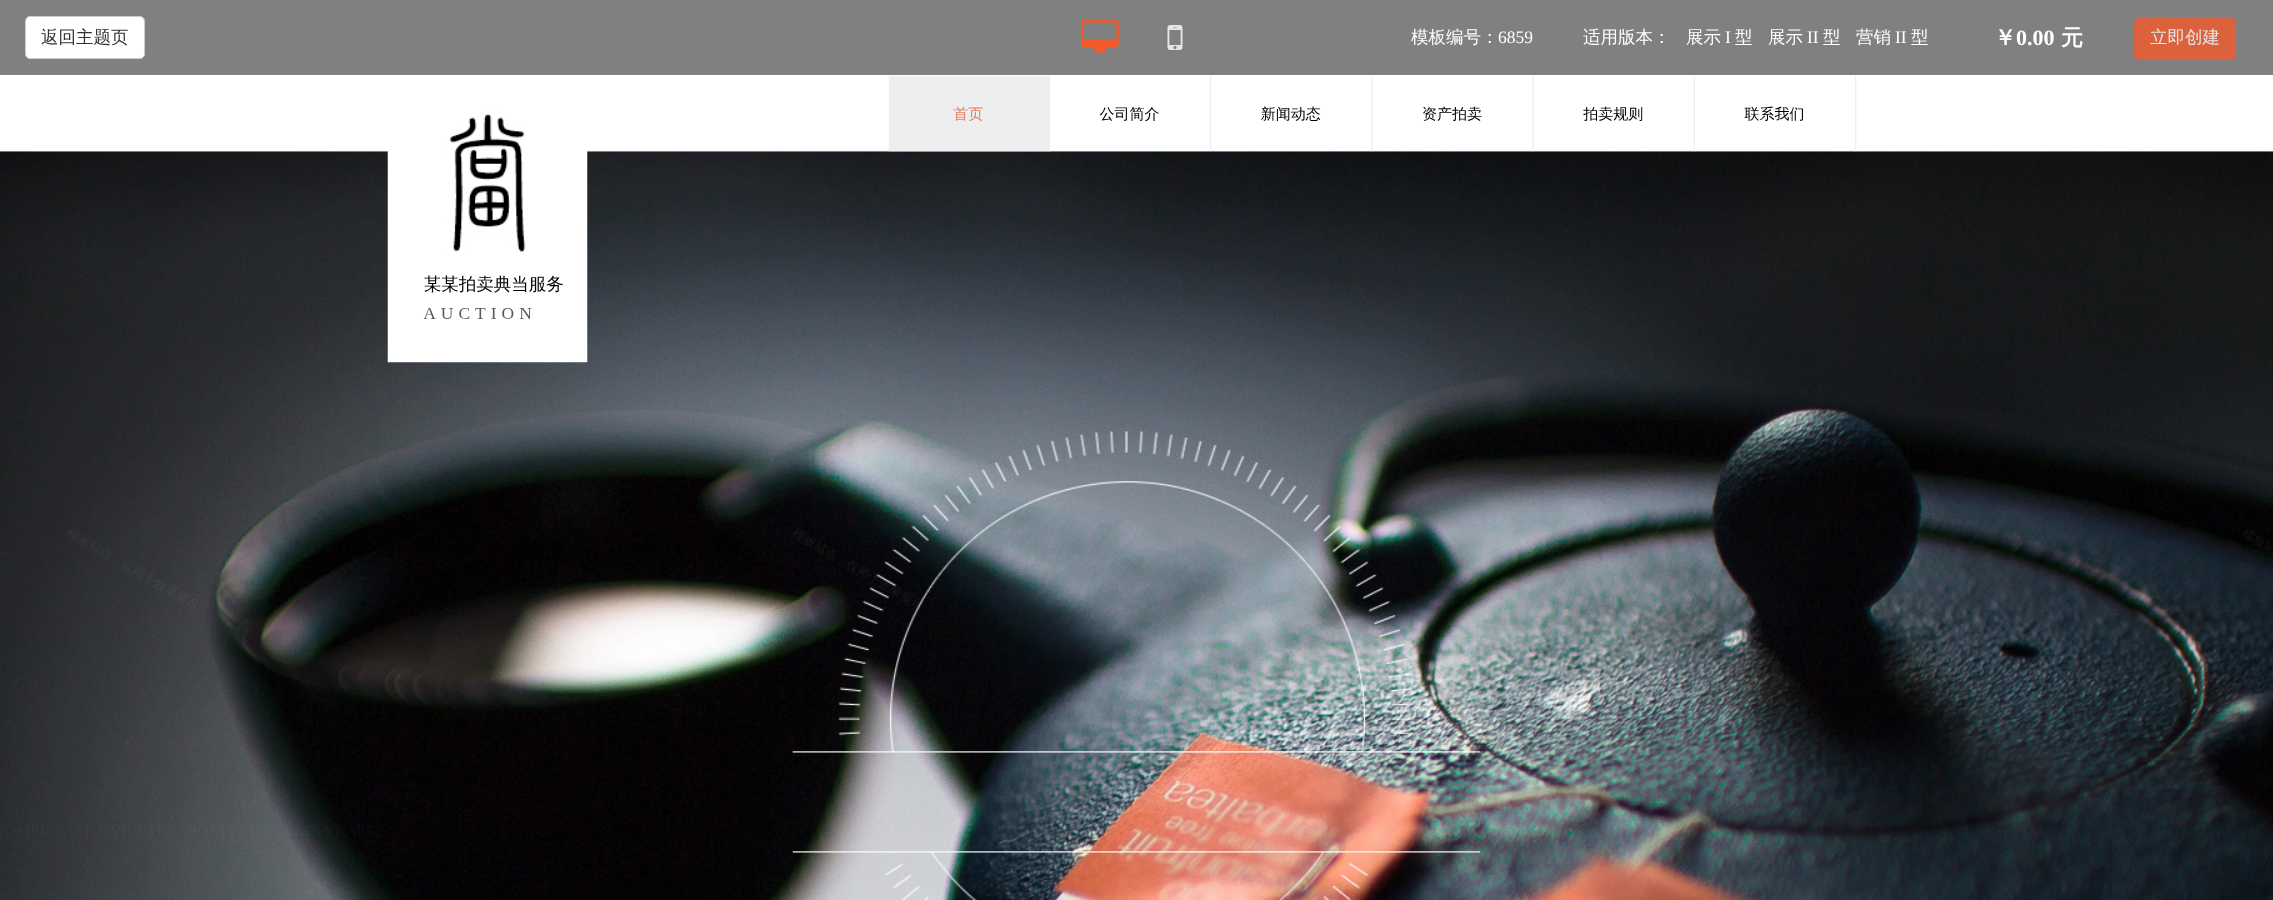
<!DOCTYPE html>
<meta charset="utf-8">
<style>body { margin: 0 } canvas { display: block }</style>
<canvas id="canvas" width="2273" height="900"></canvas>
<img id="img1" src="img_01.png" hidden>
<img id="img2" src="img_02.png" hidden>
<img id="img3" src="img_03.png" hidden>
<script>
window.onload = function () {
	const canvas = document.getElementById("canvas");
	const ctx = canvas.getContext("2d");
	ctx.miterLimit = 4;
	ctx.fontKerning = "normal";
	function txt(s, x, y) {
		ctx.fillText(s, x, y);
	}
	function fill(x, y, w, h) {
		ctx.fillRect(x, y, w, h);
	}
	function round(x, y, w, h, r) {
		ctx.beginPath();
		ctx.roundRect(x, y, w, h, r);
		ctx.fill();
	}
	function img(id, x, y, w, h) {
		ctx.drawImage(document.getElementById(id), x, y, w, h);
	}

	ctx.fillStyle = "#FFFFFF";
	fill(0, 0, 2273, 900);
	ctx.fillStyle = "#808080";
	fill(0, 0, 2273, 75);
	ctx.fillStyle = "#FFFFFF";
	ctx.beginPath();
	ctx.roundRect(25.5, 16.5, 119, 42, 4.5);
	ctx.fill();
	ctx.strokeStyle = "#CCCCCC";
	ctx.stroke();
	img("img1", 1081, 20, 38, 33);
	img("img2", 1167, 25, 16, 25);
	ctx.fillStyle = "#DB623D";
	round(2134, 18, 102, 42, 5);
	img("img3", 0, 76, 2273, 824);
	ctx.font = "500 17.5px WenQuanYi Zen Hei";
	ctx.fillStyle = "#333333";
	txt("返回主题页", 41, 43);
	ctx.fillStyle = "#FFFFFF";
	txt("模板编号：", 1411, 43);
	ctx.font = "17.5px Liberation Serif";
	txt("6859", 1498, 43);
	ctx.font = "500 17.5px WenQuanYi Zen Hei";
	txt("适用版本：", 1583, 43);
	txt("展示", 1686, 43);
	ctx.font = "17.5px Liberation Serif";
	txt("I", 1725, 43);
	ctx.font = "500 17.5px WenQuanYi Zen Hei";
	txt("型", 1735, 43);
	txt("展示", 1768, 43);
	ctx.font = "17.5px Liberation Serif";
	txt("II", 1807, 43);
	ctx.font = "500 17.5px WenQuanYi Zen Hei";
	txt("型", 1823, 43);
	txt("营销", 1856, 43);
	ctx.font = "17.5px Liberation Serif";
	txt("II", 1895, 43);
	ctx.font = "500 17.5px WenQuanYi Zen Hei";
	txt("型", 1911, 43);
	ctx.font = "bold 22px WenQuanYi Zen Hei";
	txt("￥", 1994, 45);
	ctx.font = "bold 22px Liberation Serif";
	txt("0.00", 2016, 45);
	ctx.font = "bold 22px WenQuanYi Zen Hei";
	txt("元", 2061, 45);
	ctx.font = "500 17.5px WenQuanYi Zen Hei";
	ctx.fillStyle = "#E6E6E6";
	txt("立即创建", 2150, 43);
};
</script>
